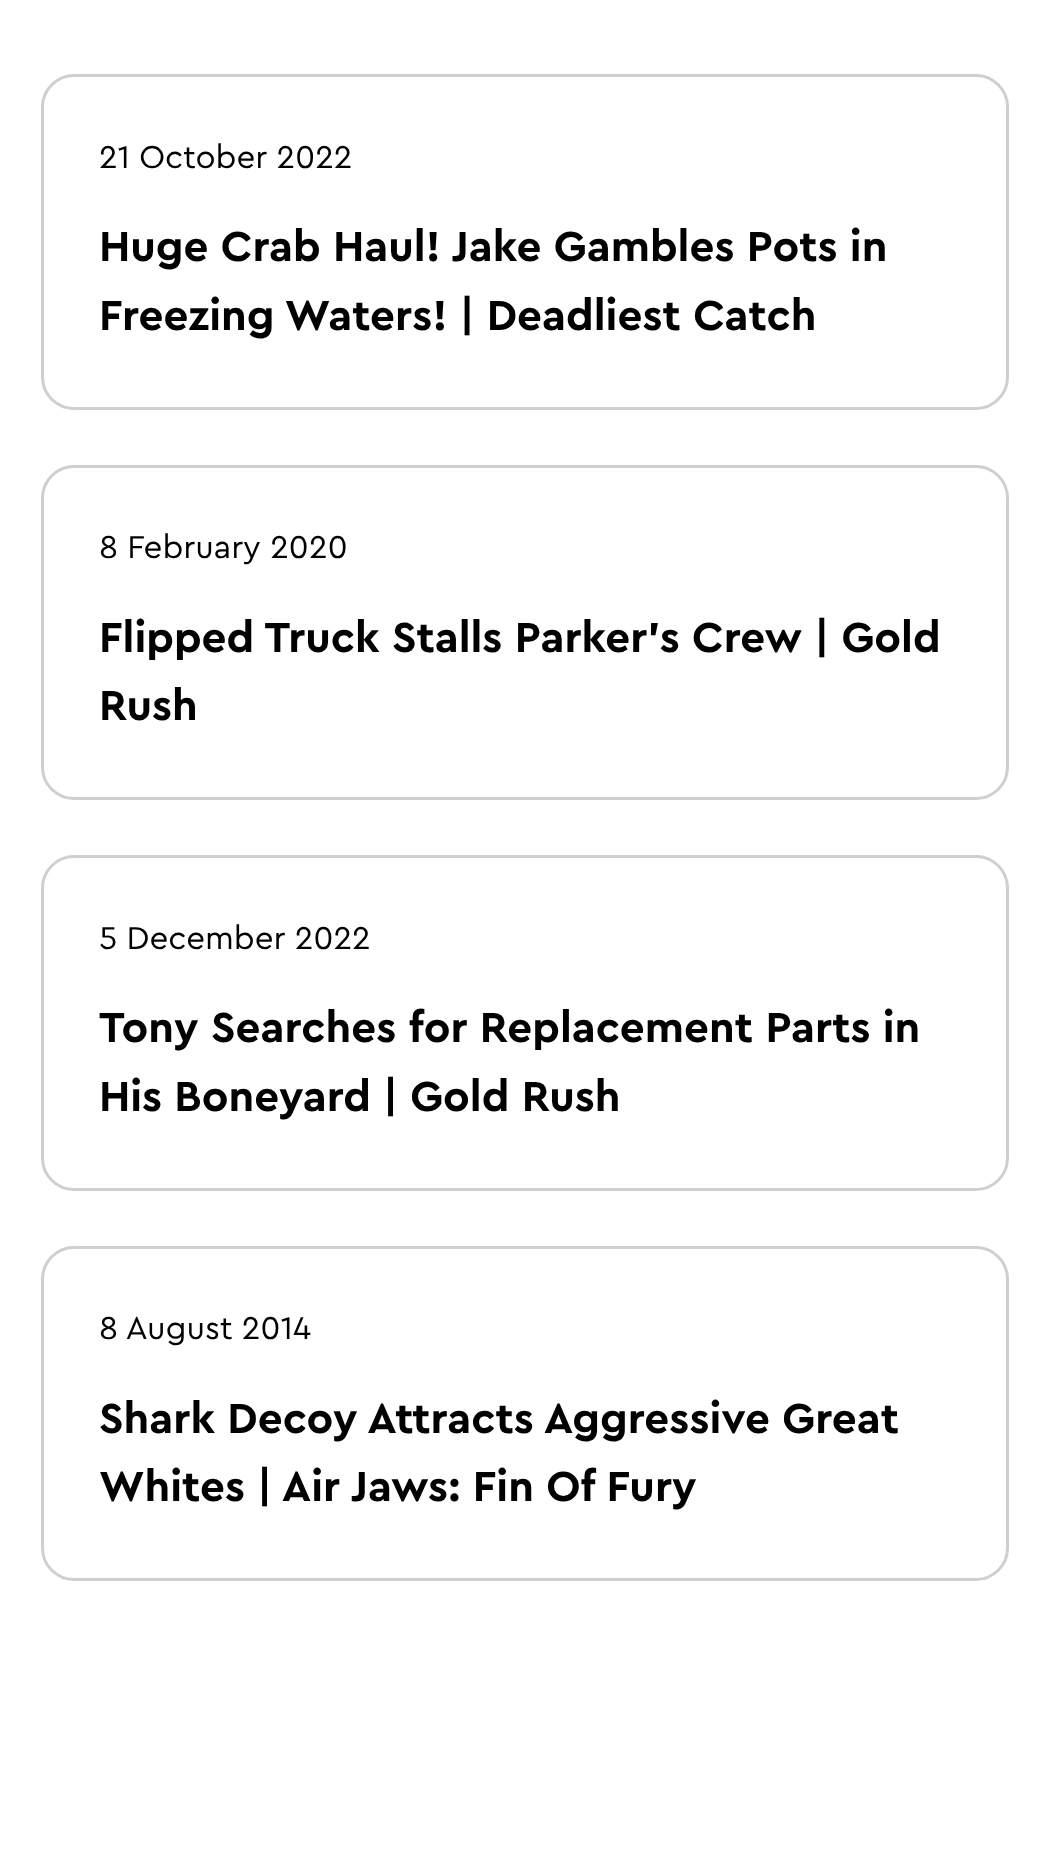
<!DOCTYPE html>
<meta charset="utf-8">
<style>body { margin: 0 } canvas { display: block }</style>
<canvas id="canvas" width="1050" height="1856"></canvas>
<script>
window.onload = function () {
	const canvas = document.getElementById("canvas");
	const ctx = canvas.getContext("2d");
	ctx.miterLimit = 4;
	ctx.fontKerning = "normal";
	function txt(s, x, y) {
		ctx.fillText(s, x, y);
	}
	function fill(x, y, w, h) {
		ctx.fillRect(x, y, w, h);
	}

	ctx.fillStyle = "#FFFFFF";
	fill(0, 0, 1050, 1856);
	ctx.beginPath();
	ctx.roundRect(42.5, 75.5, 965, 333, 31.5);
	ctx.strokeStyle = "#CFCFCF";
	ctx.lineWidth = 3;
	ctx.stroke();
	ctx.beginPath();
	ctx.roundRect(42.5, 466.5, 965, 332, 31.5);
	ctx.stroke();
	ctx.beginPath();
	ctx.roundRect(42.5, 856.5, 965, 333, 31.5);
	ctx.stroke();
	ctx.beginPath();
	ctx.roundRect(42.5, 1247.5, 965, 332, 31.5);
	ctx.stroke();
	ctx.font = "33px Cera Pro";
	ctx.fillStyle = "#000000";
	txt("21 October 2022", 99, 168);
	ctx.font = "bold 44px Cera Pro";
	txt("Huge Crab Haul! Jake Gambles Pots in", 99, 261);
	txt("Freezing Waters! | Deadliest Catch", 99, 330);
	ctx.font = "33px Cera Pro";
	txt("8 February 2020", 99, 558);
	ctx.font = "bold 44px Cera Pro";
	txt("Flipped Truck Stalls Parker's Crew | Gold", 99, 652);
	txt("Rush", 99, 720);
	ctx.font = "33px Cera Pro";
	txt("5 December 2022", 99, 949);
	ctx.font = "bold 44px Cera Pro";
	txt("Tony Searches for Replacement Parts in", 99, 1042);
	txt("His Boneyard | Gold Rush", 99, 1111);
	ctx.font = "33px Cera Pro";
	txt("8 August 2014", 99, 1339);
	ctx.font = "bold 44px Cera Pro";
	txt("Shark Decoy Attracts Aggressive Great", 99, 1433);
	txt("Whites | Air Jaws: Fin Of Fury", 99, 1501);
};
</script>
